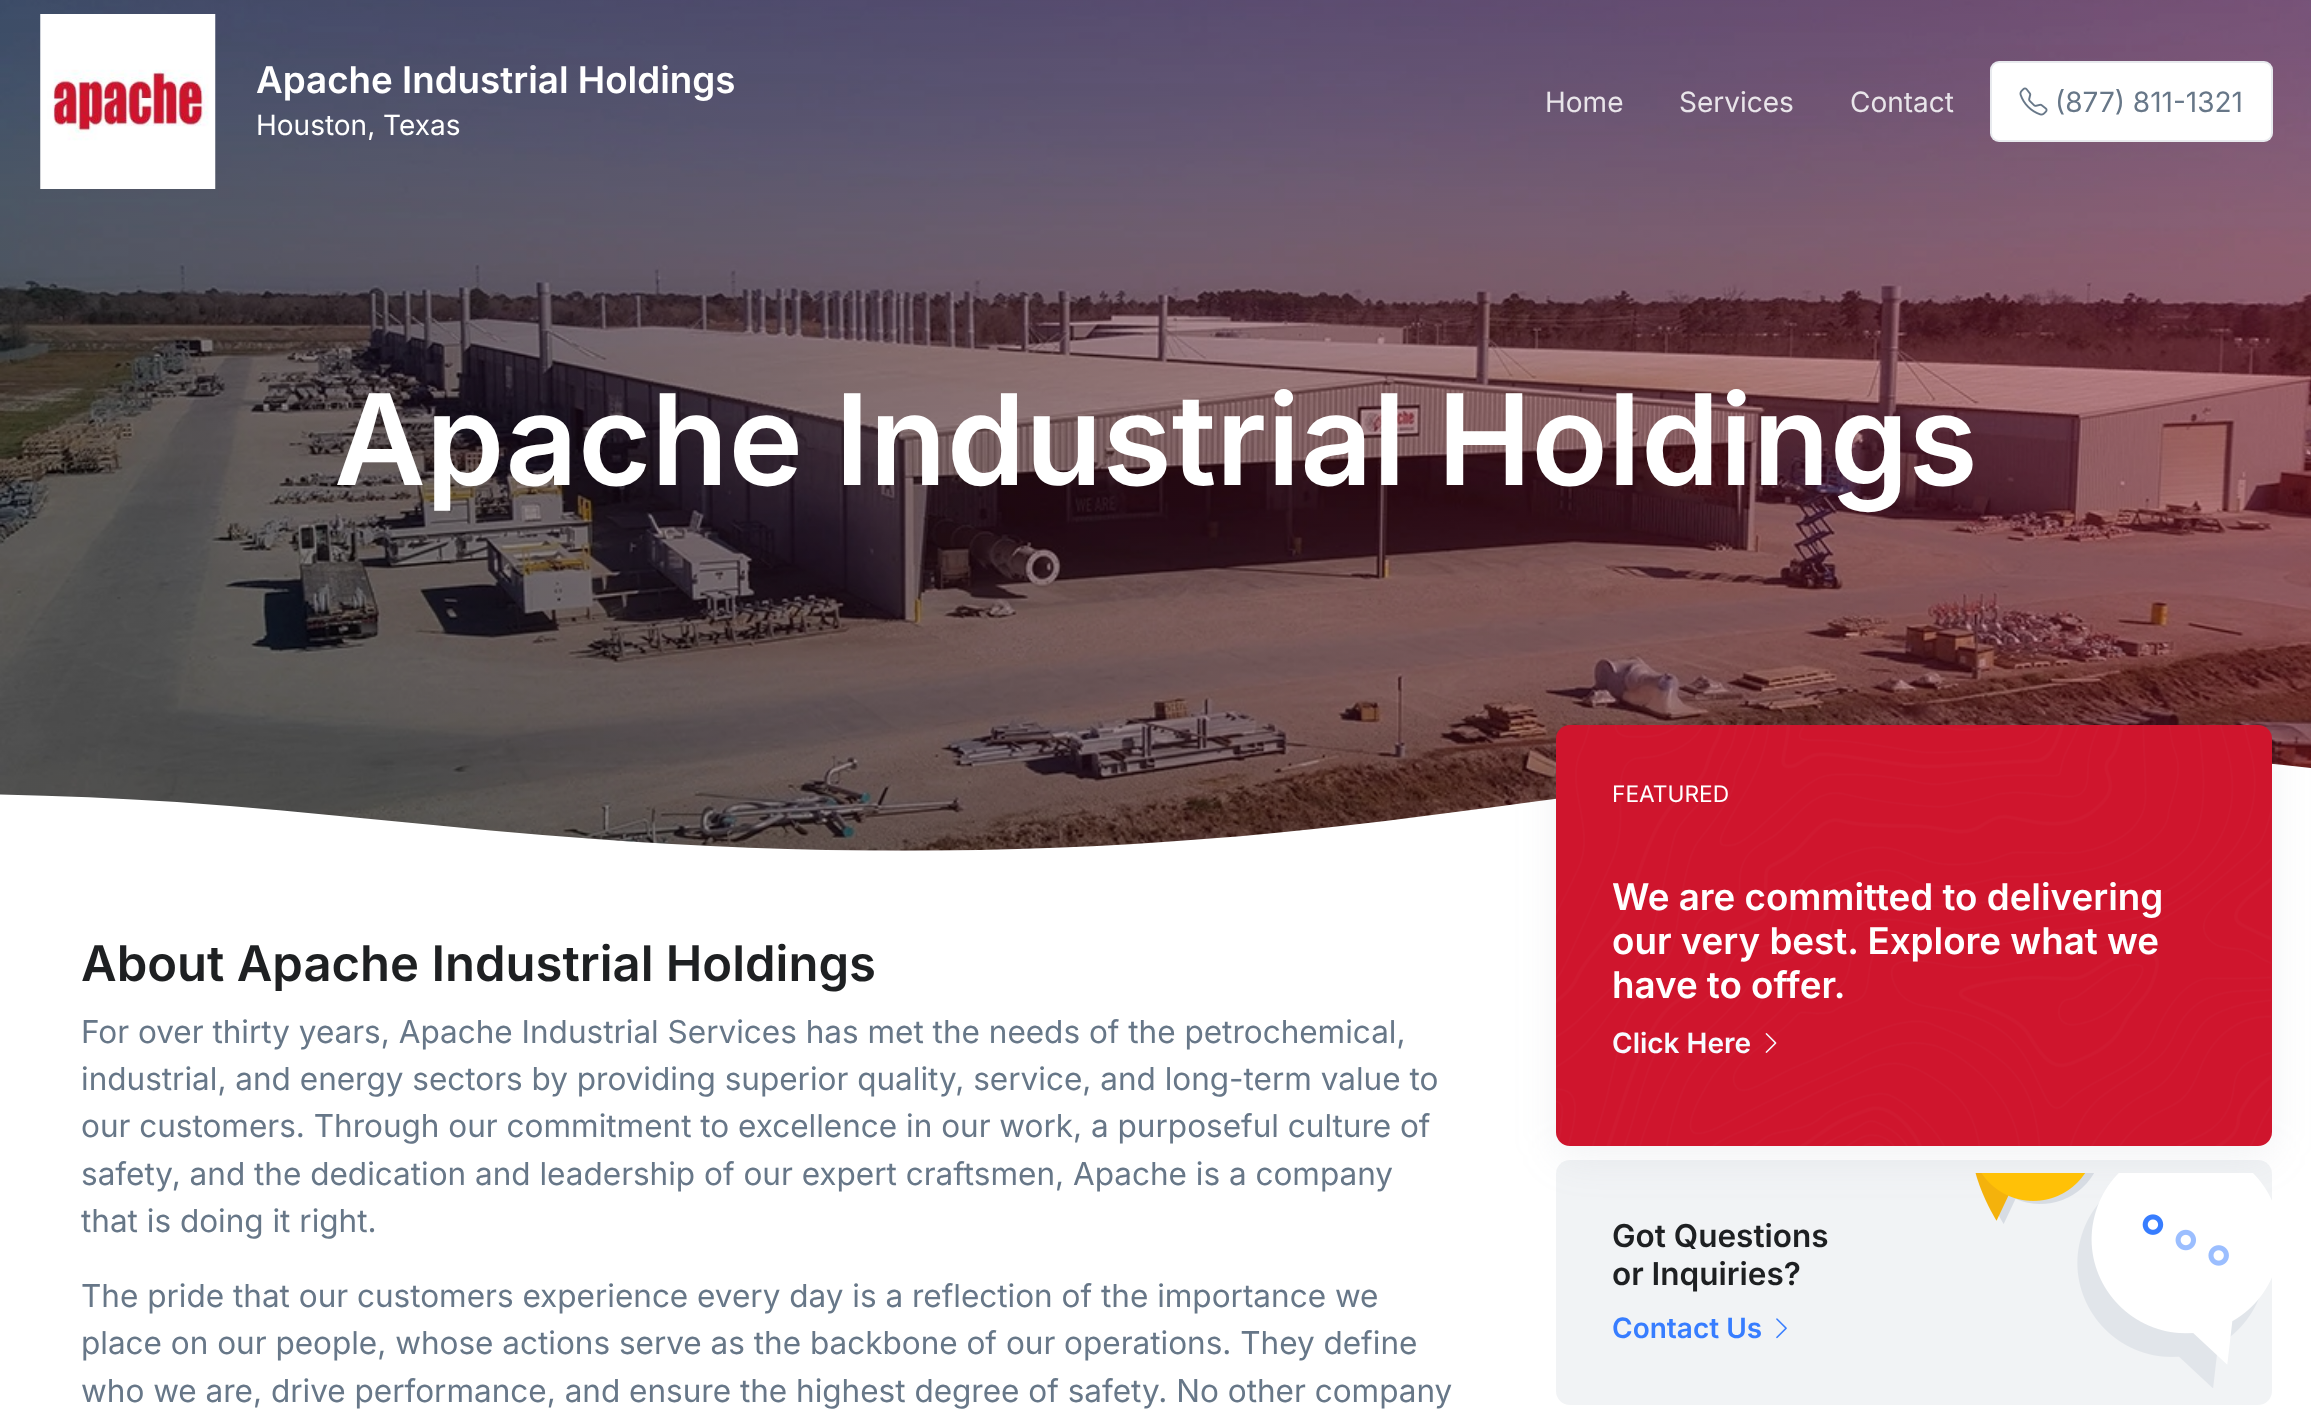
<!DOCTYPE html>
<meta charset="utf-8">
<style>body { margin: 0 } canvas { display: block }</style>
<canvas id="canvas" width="2311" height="1409"></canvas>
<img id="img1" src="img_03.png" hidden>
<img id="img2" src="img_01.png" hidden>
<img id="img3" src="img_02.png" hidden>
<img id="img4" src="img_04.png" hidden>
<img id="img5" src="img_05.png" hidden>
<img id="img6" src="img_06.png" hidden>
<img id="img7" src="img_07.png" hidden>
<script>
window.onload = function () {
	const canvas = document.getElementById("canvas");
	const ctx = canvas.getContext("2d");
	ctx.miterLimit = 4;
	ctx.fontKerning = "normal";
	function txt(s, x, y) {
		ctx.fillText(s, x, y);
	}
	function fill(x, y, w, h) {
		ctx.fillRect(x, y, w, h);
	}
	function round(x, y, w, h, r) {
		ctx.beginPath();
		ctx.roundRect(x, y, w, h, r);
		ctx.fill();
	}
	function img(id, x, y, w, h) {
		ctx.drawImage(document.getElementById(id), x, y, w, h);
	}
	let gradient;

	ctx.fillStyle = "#FFFFFF";
	fill(0, 0, 2311, 1409);
	img("img1", 0, 0, 2311, 851);
	gradient = ctx.createLinearGradient(365, 1216, 1946, -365);
	gradient.addColorStop(0.15, "rgba(0, 0, 0, 0.4)");
	gradient.addColorStop(1, "rgba(207, 21, 45, 0.35)");
	ctx.fillStyle = gradient;
	fill(0, 0, 2311, 851);
	img("img2", 40, 14, 176, 175);
	ctx.fillStyle = "#FFFFFF";
	round(1990, 61, 283, 81, 9);
	ctx.beginPath();
	ctx.roundRect(1991, 62, 281, 79, 8);
	ctx.strokeStyle = "rgba(33, 50, 91, 0.1)";
	ctx.lineWidth = 2;
	ctx.stroke();
	img("img3", 2019, 87, 29, 29);
	ctx.save();
	ctx.beginPath();
	ctx.rect(0, 746, 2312, 105);
	ctx.clip();
	ctx.beginPath();
	ctx.moveTo(177, 802);
	ctx.bezierCurveTo(318, 812, 455, 829, 595, 839);
	ctx.bezierCurveTo(795, 854, 1004, 855, 1204, 839);
	ctx.bezierCurveTo(1398, 825, 1599, 789, 1791, 771);
	ctx.bezierCurveTo(1961, 754, 2147, 748, 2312, 768);
	ctx.lineTo(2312, 852);
	ctx.lineTo(-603, 852);
	ctx.lineTo(-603, 828);
	ctx.bezierCurveTo(-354, 794, -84, 785, 177, 802);
	ctx.closePath();
	ctx.fill();
	ctx.restore();
	ctx.fillStyle = "rgba(140, 152, 164, 0.12)";
	ctx.filter = "blur(21px)";
	ctx.beginPath();
	ctx.roundRect(1556, 735, 716, 422, 14);
	ctx.fill();
	ctx.filter = "none";
	ctx.fillStyle = "#CF152D";
	round(1556, 725, 716, 421, 14);
	img("img4", 1556, 725, 715, 421);
	img("img5", 1765, 1033, 12, 20);
	ctx.fillStyle = "rgba(113, 134, 157, 0.1)";
	round(1556, 1160, 716, 245, 14);
	img("img6", 1776, 1318, 11, 21);
	img("img7", 1975, 1173, 297, 215);
	ctx.font = "600 36.75px Inter";
	ctx.fillStyle = "#FFFFFF";
	txt("Apache Industrial Holdings", 256, 93);
	ctx.font = "28px Inter";
	txt("Houston, Texas", 256, 135);
	ctx.fillStyle = "#E9E5EA";
	txt("Home", 1545, 112);
	txt("Services", 1679, 112);
	txt("Contact", 1850, 112);
	ctx.fillStyle = "#677788";
	txt("(877) 811-1321", 2055, 112);
	ctx.font = "600 126px Inter";
	ctx.fillStyle = "#FFFFFF";
	txt("Apache Industrial Holdings", 334, 485);
	ctx.font = "600 49px Inter";
	ctx.fillStyle = "#1E2022";
	txt("About Apache Industrial Holdings", 81, 981);
	ctx.font = "31.5px Inter";
	ctx.fillStyle = "#677788";
	txt("For over thirty years, Apache Industrial Services has met the needs of the petrochemical,", 81, 1043);
	txt("industrial, and energy sectors by providing superior quality, service, and long-term value to", 81, 1090);
	txt("our customers. Through our commitment to excellence in our work, a purposeful culture of", 81, 1137);
	txt("safety, and the dedication and leadership of our expert craftsmen, Apache is a company", 81, 1185);
	txt("that is doing it right.", 81, 1232);
	txt("The pride that our customers experience every day is a reflection of the importance we", 81, 1307);
	txt("place on our people, whose actions serve as the backbone of our operations. They define", 81, 1354);
	txt("who we are, drive performance, and ensure the highest degree of safety. No other company", 81, 1402);
	ctx.font = "22.75px Inter";
	ctx.fillStyle = "#FFFFFF";
	txt("FEATURED", 1612, 802);
	ctx.font = "600 36.75px Inter";
	txt("We are committed to delivering", 1612, 910);
	txt("our very best. Explore what we", 1612, 954);
	txt("have to offer.", 1612, 998);
	ctx.font = "600 28px Inter";
	ctx.fillStyle = "#F7FAFF";
	txt("Click Here", 1612, 1053);
	ctx.font = "600 31.5px Inter";
	ctx.fillStyle = "#1E2022";
	txt("Got Questions", 1612, 1247);
	txt("or Inquiries?", 1612, 1285);
	ctx.font = "600 28px Inter";
	ctx.fillStyle = "#377DFF";
	txt("Contact Us", 1612, 1338);
};
</script>
